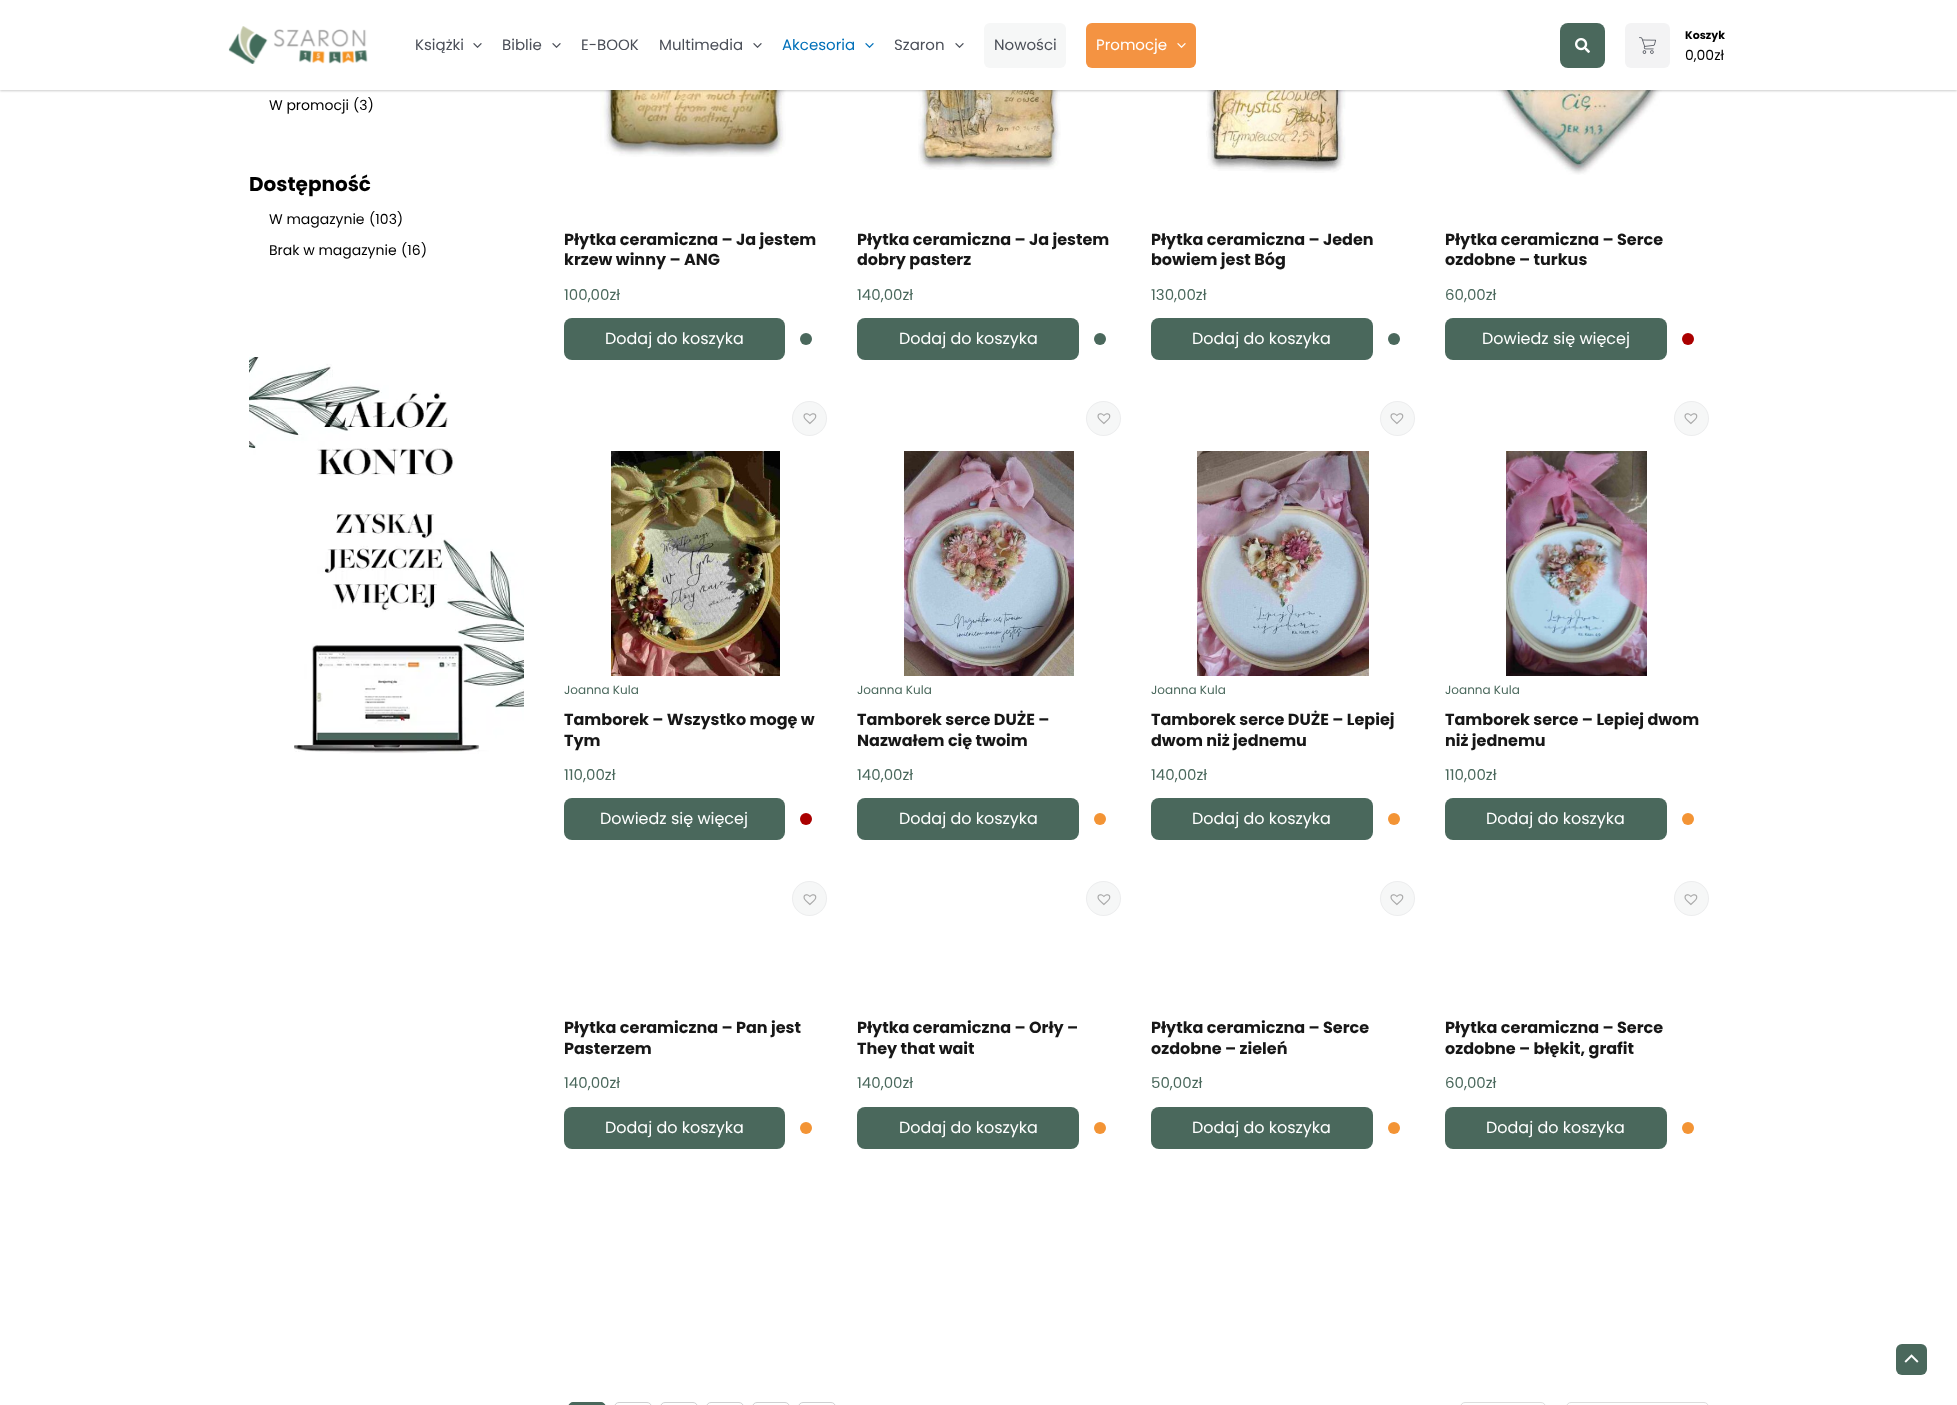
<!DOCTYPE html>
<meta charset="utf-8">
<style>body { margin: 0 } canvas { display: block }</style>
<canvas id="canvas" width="1957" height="1405"></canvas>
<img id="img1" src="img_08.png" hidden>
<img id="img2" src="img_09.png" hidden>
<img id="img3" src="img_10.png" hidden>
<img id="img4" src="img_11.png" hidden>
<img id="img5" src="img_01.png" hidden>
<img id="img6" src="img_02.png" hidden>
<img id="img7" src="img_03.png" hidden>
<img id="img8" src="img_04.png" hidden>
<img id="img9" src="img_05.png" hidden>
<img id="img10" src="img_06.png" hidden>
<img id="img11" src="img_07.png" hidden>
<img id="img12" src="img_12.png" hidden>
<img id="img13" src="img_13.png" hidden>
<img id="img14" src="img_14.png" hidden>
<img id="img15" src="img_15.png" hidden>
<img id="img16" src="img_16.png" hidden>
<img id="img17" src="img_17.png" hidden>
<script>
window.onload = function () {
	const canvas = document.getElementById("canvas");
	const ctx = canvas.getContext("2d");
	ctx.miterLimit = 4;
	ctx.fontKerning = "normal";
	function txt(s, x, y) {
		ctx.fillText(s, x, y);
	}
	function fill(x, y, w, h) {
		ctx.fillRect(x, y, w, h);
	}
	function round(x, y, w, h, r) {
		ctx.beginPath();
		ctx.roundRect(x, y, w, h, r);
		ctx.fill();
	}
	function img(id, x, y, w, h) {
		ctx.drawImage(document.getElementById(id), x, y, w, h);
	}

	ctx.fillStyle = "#FFFFFF";
	fill(0, 0, 1957, 1405);
	img("img1", 600, 90, 186, 67);
	img("img2", 918, 90, 143, 80);
	img("img3", 1206, 90, 140, 83);
	img("img4", 1488, 90, 182, 85);
	ctx.fillStyle = "rgba(0, 0, 0, 0.2)";
	ctx.filter = "blur(1px)";
	ctx.beginPath();
	ctx.rect(0, 1, 1957, 90);
	ctx.fill();
	ctx.filter = "none";
	ctx.fillStyle = "#FFFFFF";
	fill(0, 0, 1957, 90);
	img("img5", 228, 26, 140, 38);
	img("img6", 473, 43, 9, 5);
	img("img6", 552, 43, 9, 5);
	img("img6", 753, 43, 9, 5);
	img("img7", 865, 43, 9, 5);
	img("img6", 955, 43, 9, 5);
	ctx.fillStyle = "#F6F7F7";
	round(984, 23, 82, 45, 6);
	ctx.fillStyle = "#F49342";
	round(1086, 23, 110, 45, 6);
	img("img8", 1177, 43, 9, 5);
	ctx.fillStyle = "#4A685C";
	round(1560, 23, 45, 45, 8);
	img("img9", 1575, 38, 15, 15);
	ctx.fillStyle = "#F3F3F4";
	round(1625, 23, 45, 45, 6);
	img("img10", 1639, 37, 17, 17);
	img("img11", 249, 357, 275, 397);
	ctx.fillStyle = "#4A685C";
	round(564, 318, 221, 42, 8);
	ctx.beginPath();
	ctx.arc(806, 339, 6, 0, Math.PI * 2);
	ctx.fill();
	round(857, 318, 222, 42, 8);
	ctx.beginPath();
	ctx.arc(1100, 339, 6, 0, Math.PI * 2);
	ctx.fill();
	round(1151, 318, 222, 42, 8);
	ctx.beginPath();
	ctx.arc(1394, 339, 6, 0, Math.PI * 2);
	ctx.fill();
	round(1445, 318, 222, 42, 8);
	ctx.fillStyle = "#AA0000";
	ctx.beginPath();
	ctx.arc(1688, 339, 6, 0, Math.PI * 2);
	ctx.fill();
	ctx.fillStyle = "#F6F7F7";
	ctx.beginPath();
	ctx.arc(809.5, 418.5, 17.5, 0, Math.PI * 2);
	ctx.fill();
	ctx.beginPath();
	ctx.arc(809.5, 418.5, 17, 0, Math.PI * 2);
	ctx.strokeStyle = "rgba(208, 208, 210, 0.25)";
	ctx.stroke();
	img("img12", 803, 413, 14, 12);
	img("img13", 611, 451, 169, 225);
	ctx.fillStyle = "#4A685C";
	round(564, 798, 221, 42, 8);
	ctx.fillStyle = "#AA0000";
	ctx.beginPath();
	ctx.arc(806, 819, 6, 0, Math.PI * 2);
	ctx.fill();
	ctx.fillStyle = "#F6F7F7";
	ctx.beginPath();
	ctx.arc(1103.5, 418.5, 17.5, 0, Math.PI * 2);
	ctx.fill();
	ctx.beginPath();
	ctx.arc(1103.5, 418.5, 17, 0, Math.PI * 2);
	ctx.stroke();
	img("img12", 1097, 413, 14, 12);
	img("img14", 904, 451, 170, 225);
	ctx.fillStyle = "#4A685C";
	round(857, 798, 222, 42, 8);
	ctx.fillStyle = "#F39435";
	ctx.beginPath();
	ctx.arc(1100, 819, 6, 0, Math.PI * 2);
	ctx.fill();
	ctx.fillStyle = "#F6F7F7";
	ctx.beginPath();
	ctx.arc(1397.5, 418.5, 17.5, 0, Math.PI * 2);
	ctx.fill();
	ctx.beginPath();
	ctx.arc(1397.5, 418.5, 17, 0, Math.PI * 2);
	ctx.stroke();
	img("img12", 1390, 413, 14, 12);
	img("img15", 1197, 451, 172, 225);
	ctx.fillStyle = "#4A685C";
	round(1151, 798, 222, 42, 8);
	ctx.fillStyle = "#F39435";
	ctx.beginPath();
	ctx.arc(1394, 819, 6, 0, Math.PI * 2);
	ctx.fill();
	ctx.fillStyle = "#F6F7F7";
	ctx.beginPath();
	ctx.arc(1691.5, 418.5, 17.5, 0, Math.PI * 2);
	ctx.fill();
	ctx.beginPath();
	ctx.arc(1691.5, 418.5, 17, 0, Math.PI * 2);
	ctx.stroke();
	img("img12", 1684, 413, 14, 12);
	img("img16", 1506, 451, 141, 225);
	ctx.fillStyle = "#4A685C";
	round(1445, 798, 222, 42, 8);
	ctx.fillStyle = "#F39435";
	ctx.beginPath();
	ctx.arc(1688, 819, 6, 0, Math.PI * 2);
	ctx.fill();
	ctx.fillStyle = "#F6F7F7";
	ctx.beginPath();
	ctx.arc(809.5, 898.5, 17.5, 0, Math.PI * 2);
	ctx.fill();
	ctx.beginPath();
	ctx.arc(809.5, 898.5, 17, 0, Math.PI * 2);
	ctx.stroke();
	img("img12", 803, 894, 14, 12);
	ctx.fillStyle = "#4A685C";
	round(564, 1107, 221, 42, 8);
	ctx.fillStyle = "#F39435";
	ctx.beginPath();
	ctx.arc(806, 1128, 6, 0, Math.PI * 2);
	ctx.fill();
	ctx.fillStyle = "#F6F7F7";
	ctx.beginPath();
	ctx.arc(1103.5, 898.5, 17.5, 0, Math.PI * 2);
	ctx.fill();
	ctx.beginPath();
	ctx.arc(1103.5, 898.5, 17, 0, Math.PI * 2);
	ctx.stroke();
	img("img12", 1097, 894, 14, 12);
	ctx.fillStyle = "#4A685C";
	round(857, 1107, 222, 42, 8);
	ctx.fillStyle = "#F39435";
	ctx.beginPath();
	ctx.arc(1100, 1128, 6, 0, Math.PI * 2);
	ctx.fill();
	ctx.fillStyle = "#F6F7F7";
	ctx.beginPath();
	ctx.arc(1397.5, 898.5, 17.5, 0, Math.PI * 2);
	ctx.fill();
	ctx.beginPath();
	ctx.arc(1397.5, 898.5, 17, 0, Math.PI * 2);
	ctx.stroke();
	img("img12", 1390, 894, 14, 12);
	ctx.fillStyle = "#4A685C";
	round(1151, 1107, 222, 42, 8);
	ctx.fillStyle = "#F39435";
	ctx.beginPath();
	ctx.arc(1394, 1128, 6, 0, Math.PI * 2);
	ctx.fill();
	ctx.fillStyle = "#F6F7F7";
	ctx.beginPath();
	ctx.arc(1691.5, 898.5, 17.5, 0, Math.PI * 2);
	ctx.fill();
	ctx.beginPath();
	ctx.arc(1691.5, 898.5, 17, 0, Math.PI * 2);
	ctx.stroke();
	img("img12", 1684, 894, 14, 12);
	ctx.fillStyle = "#4A685C";
	round(1445, 1107, 222, 42, 8);
	ctx.fillStyle = "#F39435";
	ctx.beginPath();
	ctx.arc(1688, 1128, 6, 0, Math.PI * 2);
	ctx.fill();
	ctx.fillStyle = "#4A685C";
	ctx.beginPath();
	ctx.roundRect(568.5, 1402.5, 37, 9, 5.5);
	ctx.fill();
	ctx.strokeStyle = "#4A685C";
	ctx.stroke();
	ctx.beginPath();
	ctx.roundRect(614.5, 1402.5, 37, 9, 5.5);
	ctx.strokeStyle = "#D0D0D2";
	ctx.stroke();
	ctx.beginPath();
	ctx.roundRect(660.5, 1402.5, 37, 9, 5.5);
	ctx.stroke();
	ctx.beginPath();
	ctx.roundRect(706.5, 1402.5, 37, 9, 5.5);
	ctx.stroke();
	ctx.beginPath();
	ctx.roundRect(752.5, 1402.5, 37, 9, 5.5);
	ctx.stroke();
	ctx.beginPath();
	ctx.roundRect(798.5, 1402.5, 37, 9, 5.5);
	ctx.stroke();
	ctx.beginPath();
	ctx.roundRect(1460.5, 1402.5, 85, 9, 5.5);
	ctx.strokeStyle = "#DDDDDD";
	ctx.stroke();
	ctx.beginPath();
	ctx.roundRect(1566.5, 1402.5, 142, 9, 5.5);
	ctx.stroke();
	round(1896, 1344, 31, 31, 6);
	img("img17", 1904, 1354, 15, 9);
	ctx.font = "15px Poppins";
	ctx.fillStyle = "#4B4F58";
	txt("Książki", 415, 50);
	txt("Biblie", 502, 50);
	txt("E-BOOK", 581, 50);
	txt("Multimedia", 659, 50);
	ctx.fillStyle = "#0170B9";
	txt("Akcesoria", 782, 50);
	ctx.fillStyle = "#4B4F58";
	txt("Szaron", 894, 50);
	txt("Nowości", 994, 50);
	ctx.fillStyle = "#FFFFFF";
	txt("Promocje", 1096, 50);
	ctx.font = "bold 11px Poppins";
	ctx.fillStyle = "#000000";
	txt("Koszyk", 1685, 39);
	ctx.font = "14px Poppins";
	txt("0,00zł", 1685, 60);
	txt("W promocji", 269, 110);
	txt("(3)", 353, 110);
	ctx.font = "bold 20px Poppins";
	txt("Dostępność", 249, 191);
	ctx.font = "14px Poppins";
	txt("W magazynie", 269, 224);
	txt("(103)", 369, 224);
	txt("Brak w magazynie", 269, 255);
	txt("(16)", 401, 255);
	ctx.font = "bold 16px Poppins";
	ctx.fillStyle = "#171717";
	txt("Płytka ceramiczna – Ja jestem", 564, 245);
	txt("krzew winny – ANG", 564, 265);
	ctx.font = "15px Poppins";
	ctx.fillStyle = "#4A685C";
	txt("100,00zł", 564, 300);
	ctx.font = "16px Poppins";
	ctx.fillStyle = "#FFFFFF";
	txt("Dodaj do koszyka", 605, 344);
	ctx.font = "bold 16px Poppins";
	ctx.fillStyle = "#171717";
	txt("Płytka ceramiczna – Ja jestem", 857, 245);
	txt("dobry pasterz", 857, 265);
	ctx.font = "15px Poppins";
	ctx.fillStyle = "#4A685C";
	txt("140,00zł", 857, 300);
	ctx.font = "16px Poppins";
	ctx.fillStyle = "#FFFFFF";
	txt("Dodaj do koszyka", 899, 344);
	ctx.font = "bold 16px Poppins";
	ctx.fillStyle = "#171717";
	txt("Płytka ceramiczna – Jeden", 1151, 245);
	txt("bowiem jest Bóg", 1151, 265);
	ctx.font = "15px Poppins";
	ctx.fillStyle = "#4A685C";
	txt("130,00zł", 1151, 300);
	ctx.font = "16px Poppins";
	ctx.fillStyle = "#FFFFFF";
	txt("Dodaj do koszyka", 1192, 344);
	ctx.font = "bold 16px Poppins";
	ctx.fillStyle = "#171717";
	txt("Płytka ceramiczna – Serce", 1445, 245);
	txt("ozdobne – turkus", 1445, 265);
	ctx.font = "15px Poppins";
	ctx.fillStyle = "#4A685C";
	txt("60,00zł", 1445, 300);
	ctx.font = "16px Poppins";
	ctx.fillStyle = "#FFFFFF";
	txt("Dowiedz się więcej", 1482, 344);
	ctx.font = "12px Poppins";
	ctx.fillStyle = "#4A685C";
	txt("Joanna Kula", 564, 694);
	ctx.font = "bold 16px Poppins";
	ctx.fillStyle = "#171717";
	txt("Tamborek – Wszystko mogę w", 564, 725);
	txt("Tym", 564, 746);
	ctx.font = "15px Poppins";
	ctx.fillStyle = "#4A685C";
	txt("110,00zł", 564, 780);
	ctx.font = "16px Poppins";
	ctx.fillStyle = "#FFFFFF";
	txt("Dowiedz się więcej", 600, 824);
	ctx.font = "12px Poppins";
	ctx.fillStyle = "#4A685C";
	txt("Joanna Kula", 857, 694);
	ctx.font = "bold 16px Poppins";
	ctx.fillStyle = "#171717";
	txt("Tamborek serce DUŻE –", 857, 725);
	txt("Nazwałem cię twoim", 857, 746);
	ctx.font = "15px Poppins";
	ctx.fillStyle = "#4A685C";
	txt("140,00zł", 857, 780);
	ctx.font = "16px Poppins";
	ctx.fillStyle = "#FFFFFF";
	txt("Dodaj do koszyka", 899, 824);
	ctx.font = "12px Poppins";
	ctx.fillStyle = "#4A685C";
	txt("Joanna Kula", 1151, 694);
	ctx.font = "bold 16px Poppins";
	ctx.fillStyle = "#171717";
	txt("Tamborek serce DUŻE – Lepiej", 1151, 725);
	txt("dwom niż jednemu", 1151, 746);
	ctx.font = "15px Poppins";
	ctx.fillStyle = "#4A685C";
	txt("140,00zł", 1151, 780);
	ctx.font = "16px Poppins";
	ctx.fillStyle = "#FFFFFF";
	txt("Dodaj do koszyka", 1192, 824);
	ctx.font = "12px Poppins";
	ctx.fillStyle = "#4A685C";
	txt("Joanna Kula", 1445, 694);
	ctx.font = "bold 16px Poppins";
	ctx.fillStyle = "#171717";
	txt("Tamborek serce – Lepiej dwom", 1445, 725);
	txt("niż jednemu", 1445, 746);
	ctx.font = "15px Poppins";
	ctx.fillStyle = "#4A685C";
	txt("110,00zł", 1445, 780);
	ctx.font = "16px Poppins";
	ctx.fillStyle = "#FFFFFF";
	txt("Dodaj do koszyka", 1486, 824);
	ctx.font = "bold 16px Poppins";
	ctx.fillStyle = "#171717";
	txt("Płytka ceramiczna – Pan jest", 564, 1033);
	txt("Pasterzem", 564, 1054);
	ctx.font = "15px Poppins";
	ctx.fillStyle = "#4A685C";
	txt("140,00zł", 564, 1088);
	ctx.font = "16px Poppins";
	ctx.fillStyle = "#FFFFFF";
	txt("Dodaj do koszyka", 605, 1133);
	ctx.font = "bold 16px Poppins";
	ctx.fillStyle = "#171717";
	txt("Płytka ceramiczna – Orły –", 857, 1033);
	txt("They that wait", 857, 1054);
	ctx.font = "15px Poppins";
	ctx.fillStyle = "#4A685C";
	txt("140,00zł", 857, 1088);
	ctx.font = "16px Poppins";
	ctx.fillStyle = "#FFFFFF";
	txt("Dodaj do koszyka", 899, 1133);
	ctx.font = "bold 16px Poppins";
	ctx.fillStyle = "#171717";
	txt("Płytka ceramiczna – Serce", 1151, 1033);
	txt("ozdobne – zieleń", 1151, 1054);
	ctx.font = "15px Poppins";
	ctx.fillStyle = "#4A685C";
	txt("50,00zł", 1151, 1088);
	ctx.font = "16px Poppins";
	ctx.fillStyle = "#FFFFFF";
	txt("Dodaj do koszyka", 1192, 1133);
	ctx.font = "bold 16px Poppins";
	ctx.fillStyle = "#171717";
	txt("Płytka ceramiczna – Serce", 1445, 1033);
	txt("ozdobne – błękit, grafit", 1445, 1054);
	ctx.font = "15px Poppins";
	ctx.fillStyle = "#4A685C";
	txt("60,00zł", 1445, 1088);
	ctx.font = "16px Poppins";
	ctx.fillStyle = "#FFFFFF";
	txt("Dodaj do koszyka", 1486, 1133);
};
</script>
